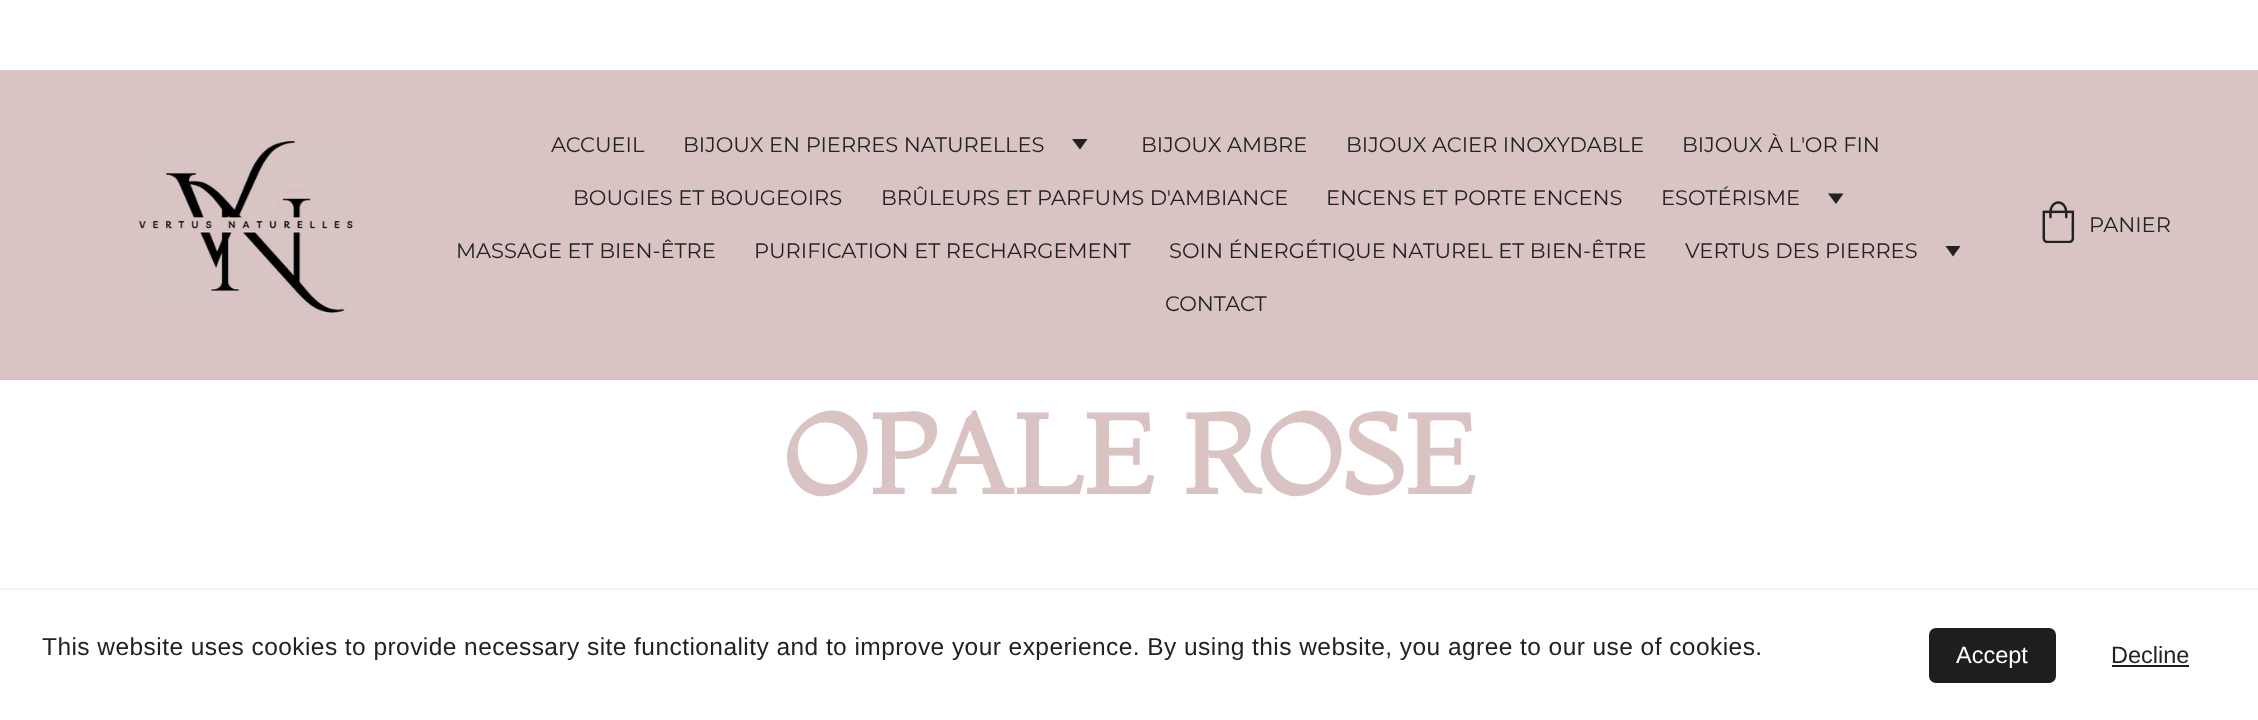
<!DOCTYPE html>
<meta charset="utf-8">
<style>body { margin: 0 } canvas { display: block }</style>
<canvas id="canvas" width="2258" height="720"></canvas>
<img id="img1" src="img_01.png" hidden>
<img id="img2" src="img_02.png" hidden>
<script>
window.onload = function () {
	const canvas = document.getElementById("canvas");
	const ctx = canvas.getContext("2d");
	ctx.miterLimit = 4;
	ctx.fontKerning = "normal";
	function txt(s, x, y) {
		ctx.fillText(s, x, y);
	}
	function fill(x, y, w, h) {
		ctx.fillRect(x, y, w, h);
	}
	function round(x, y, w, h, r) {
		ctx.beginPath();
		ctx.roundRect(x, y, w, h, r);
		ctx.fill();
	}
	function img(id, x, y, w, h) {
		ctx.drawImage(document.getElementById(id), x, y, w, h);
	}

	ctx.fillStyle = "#FFFFFF";
	fill(0, 0, 2258, 720);
	ctx.fillStyle = "#D9C3C3";
	fill(0, 70, 2258, 310);
	img("img1", 139, 139, 216, 175);
	ctx.fillStyle = "#222222";
	ctx.beginPath();
	ctx.moveTo(1080, 149.5);
	ctx.lineTo(1072, 139);
	ctx.lineTo(1087.5, 139);
	ctx.closePath();
	ctx.fill();
	ctx.beginPath();
	ctx.moveTo(1836, 204);
	ctx.lineTo(1828, 193.5);
	ctx.lineTo(1843.5, 193.5);
	ctx.closePath();
	ctx.fill();
	ctx.beginPath();
	ctx.moveTo(1953, 256.5);
	ctx.lineTo(1945.5, 246);
	ctx.lineTo(1960.5, 246);
	ctx.closePath();
	ctx.fill();
	img("img2", 2042, 201, 33, 42);
	ctx.fillStyle = "#F2F3F6";
	fill(0, 588, 2258, 2);
	ctx.fillStyle = "#1D1E20";
	round(1929, 628, 127, 55, 7);
	fill(2112, 665, 77, 2);
	ctx.font = "100 21px Montserrat";
	ctx.fillStyle = "#222222";
	txt("ACCUEIL", 551, 152);
	txt("BIJOUX EN PIERRES NATURELLES", 683, 152);
	txt("BIJOUX AMBRE", 1141, 152);
	txt("BIJOUX ACIER INOXYDABLE", 1346, 152);
	txt("BIJOUX À L'OR FIN", 1682, 152);
	txt("BOUGIES ET BOUGEOIRS", 573, 205);
	txt("BRÛLEURS ET PARFUMS D'AMBIANCE", 881, 205);
	txt("ENCENS ET PORTE ENCENS", 1326, 205);
	txt("ESOTÉRISME", 1661, 205);
	txt("MASSAGE ET BIEN-ÊTRE", 456, 258);
	txt("PURIFICATION ET RECHARGEMENT", 754, 258);
	txt("SOIN ÉNERGÉTIQUE NATUREL ET BIEN-ÊTRE", 1169, 258);
	txt("VERTUS DES PIERRES", 1685, 258);
	txt("CONTACT", 1165, 311);
	txt("PANIER", 2089, 232);
	ctx.font = "bold 112px Montaga";
	ctx.fillStyle = "#D9C3C3";
	txt("OPALE ROSE", 783, 494);
	ctx.letterSpacing = "0.44px";
	ctx.font = "24.5px Liberation Sans";
	ctx.fillStyle = "#222222";
	txt("This website uses cookies to provide necessary site functionality and to improve your experience. By using this website, you agree to our use of cookies.", 42, 655);
	ctx.letterSpacing = "0px";
	ctx.font = "23.5px Liberation Sans";
	ctx.fillStyle = "#FFFFFF";
	txt("Accept", 1956, 663);
	ctx.fillStyle = "#222222";
	txt("Decline", 2111, 663);
};
</script>
